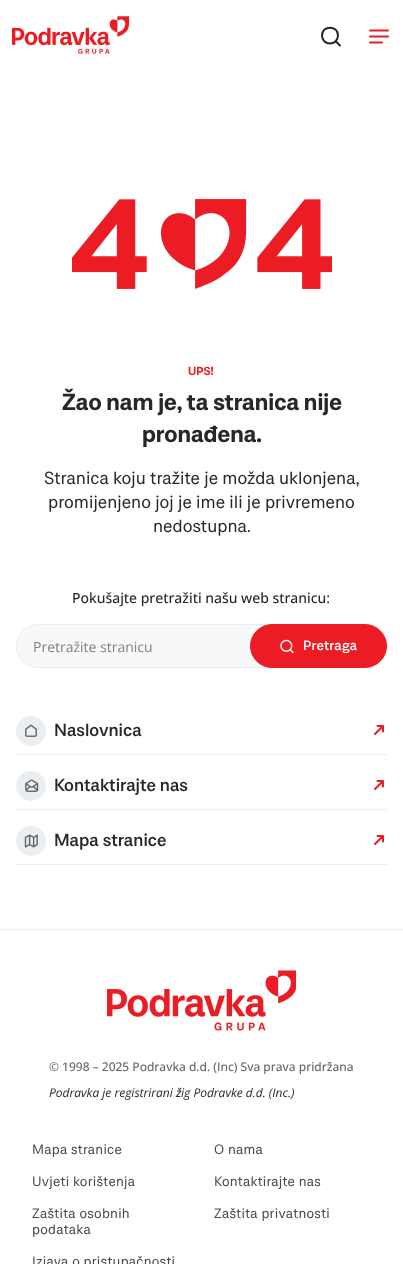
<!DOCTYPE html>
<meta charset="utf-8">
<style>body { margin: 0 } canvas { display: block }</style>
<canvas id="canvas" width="403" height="1264"></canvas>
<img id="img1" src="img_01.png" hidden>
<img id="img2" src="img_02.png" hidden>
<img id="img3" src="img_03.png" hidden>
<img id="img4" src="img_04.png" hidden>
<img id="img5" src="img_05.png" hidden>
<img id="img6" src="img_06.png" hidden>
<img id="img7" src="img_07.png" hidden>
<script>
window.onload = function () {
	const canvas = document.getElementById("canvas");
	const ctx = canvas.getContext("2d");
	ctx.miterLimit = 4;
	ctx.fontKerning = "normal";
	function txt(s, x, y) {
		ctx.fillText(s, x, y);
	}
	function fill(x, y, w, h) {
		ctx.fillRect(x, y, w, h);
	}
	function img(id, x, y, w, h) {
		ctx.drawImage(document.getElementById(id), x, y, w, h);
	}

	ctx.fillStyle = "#FFFFFF";
	fill(0, 0, 403, 1264);
	img("img1", 12, 16, 117, 38);
	ctx.beginPath();
	ctx.moveTo(340, 45.5);
	ctx.lineTo(335.5, 41);
	ctx.moveTo(338, 35.5);
	ctx.bezierCurveTo(338, 46, 322, 46, 322, 35.5);
	ctx.bezierCurveTo(322, 25, 338, 25, 338, 35.5);
	ctx.closePath();
	ctx.strokeStyle = "#272727";
	ctx.lineWidth = 2;
	ctx.lineCap = "round";
	ctx.lineJoin = "round";
	ctx.stroke();
	ctx.beginPath();
	ctx.moveTo(370, 36.5);
	ctx.lineTo(388, 36.5);
	ctx.moveTo(370, 30.5);
	ctx.lineTo(388, 30.5);
	ctx.moveTo(370, 42.5);
	ctx.lineTo(382, 42.5);
	ctx.strokeStyle = "#EC1C24";
	ctx.stroke();
	img("img2", 72, 199, 260, 90);
	ctx.fillStyle = "#F6F8F9";
	ctx.beginPath();
	ctx.roundRect(16.5, 624.5, 273, 43, [21.5, 0, 0, 21.5]);
	ctx.fill();
	ctx.strokeStyle = "#EAEEF0";
	ctx.lineWidth = 1;
	ctx.lineJoin = "miter";
	ctx.stroke();
	ctx.fillStyle = "#EC1C24";
	ctx.beginPath();
	ctx.roundRect(250.5, 624.5, 136, 43, 21.5);
	ctx.fill();
	ctx.strokeStyle = "#EC1C24";
	ctx.stroke();
	img("img3", 280, 639, 14, 15);
	ctx.fillStyle = "#EAEEF0";
	fill(16, 754, 371, 1);
	ctx.beginPath();
	ctx.arc(31, 731, 15, 0, Math.PI * 2);
	ctx.fill();
	img("img4", 25, 724, 12, 13);
	ctx.beginPath();
	ctx.moveTo(375, 734);
	ctx.lineTo(383, 726);
	ctx.moveTo(383, 726);
	ctx.lineTo(377.5, 726);
	ctx.moveTo(383, 726);
	ctx.lineTo(383, 731.5);
	ctx.lineWidth = 2;
	ctx.lineJoin = "round";
	ctx.stroke();
	fill(16, 809, 371, 1);
	ctx.beginPath();
	ctx.arc(31, 786, 15, 0, Math.PI * 2);
	ctx.fill();
	img("img5", 25, 779, 14, 13);
	ctx.beginPath();
	ctx.moveTo(375, 789);
	ctx.lineTo(383, 781);
	ctx.moveTo(383, 781);
	ctx.lineTo(377.5, 781);
	ctx.moveTo(383, 781);
	ctx.lineTo(383, 786.5);
	ctx.stroke();
	fill(16, 864, 371, 1);
	ctx.beginPath();
	ctx.arc(31, 841, 15, 0, Math.PI * 2);
	ctx.fill();
	img("img6", 24, 834, 14, 14);
	ctx.beginPath();
	ctx.moveTo(375, 844);
	ctx.lineTo(383, 836);
	ctx.moveTo(383, 836);
	ctx.lineTo(377.5, 836);
	ctx.moveTo(383, 836);
	ctx.lineTo(383, 841.5);
	ctx.stroke();
	fill(0, 929, 403, 1);
	img("img7", 107, 970, 189, 61);
	ctx.font = "bold 12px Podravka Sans";
	ctx.fillStyle = "#EC1C24";
	txt("UPS!", 188, 375);
	ctx.font = "bold 24px Podravka Sans";
	ctx.fillStyle = "#272727";
	txt("Žao nam je, ta stranica nije", 62, 410);
	txt("pronađena.", 142, 442);
	ctx.font = "18px Podravka Sans";
	txt("Stranica koju tražite je možda uklonjena,", 44, 484);
	txt("promijenjeno joj je ime ili je privremeno", 48, 508);
	txt("nedostupna.", 153, 532);
	ctx.font = "500 14px Open Sans";
	txt("Pokušajte pretražiti našu web stranicu:", 72, 603);
	ctx.font = "14px Open Sans";
	ctx.fillStyle = "#818181";
	txt("Pretražite stranicu", 33, 652);
	ctx.letterSpacing = "0.25px";
	ctx.font = "500 14px Podravka Sans";
	ctx.fillStyle = "#FFFFFF";
	txt("Pretraga", 303, 650);
	ctx.letterSpacing = "0px";
	ctx.font = "500 18px Podravka Sans";
	ctx.fillStyle = "#272727";
	txt("Naslovnica", 54, 736);
	txt("Kontaktirajte nas", 54, 791);
	txt("Mapa stranice", 54, 846);
	ctx.font = "500 12px Open Sans";
	ctx.fillStyle = "#656565";
	txt("© 1998 – 2025 Podravka d.d. (Inc) Sva prava pridržana", 49, 1071);
	ctx.font = "italic 12px Open Sans";
	ctx.fillStyle = "#272727";
	txt("Podravka je registrirani", 49, 1097);
	ctx.font = "italic 500 12px Open Sans";
	txt("ž", 176, 1097);
	ctx.font = "italic 12px Open Sans";
	txt("ig Podravke d.d. (Inc.)", 181, 1097);
	ctx.letterSpacing = "0.25px";
	ctx.font = "14px Podravka Sans";
	ctx.fillStyle = "#494949";
	txt("Mapa stranice", 32, 1154);
	txt("Uvjeti korištenja", 32, 1186);
	txt("Zaštita osobnih", 32, 1218);
	txt("podataka", 32, 1234);
	txt("Izjava o pristupačnosti", 32, 1266);
	txt("O nama", 214, 1154);
	txt("Kontaktirajte nas", 214, 1186);
	txt("Zaštita privatnosti", 214, 1218);
};
</script>
